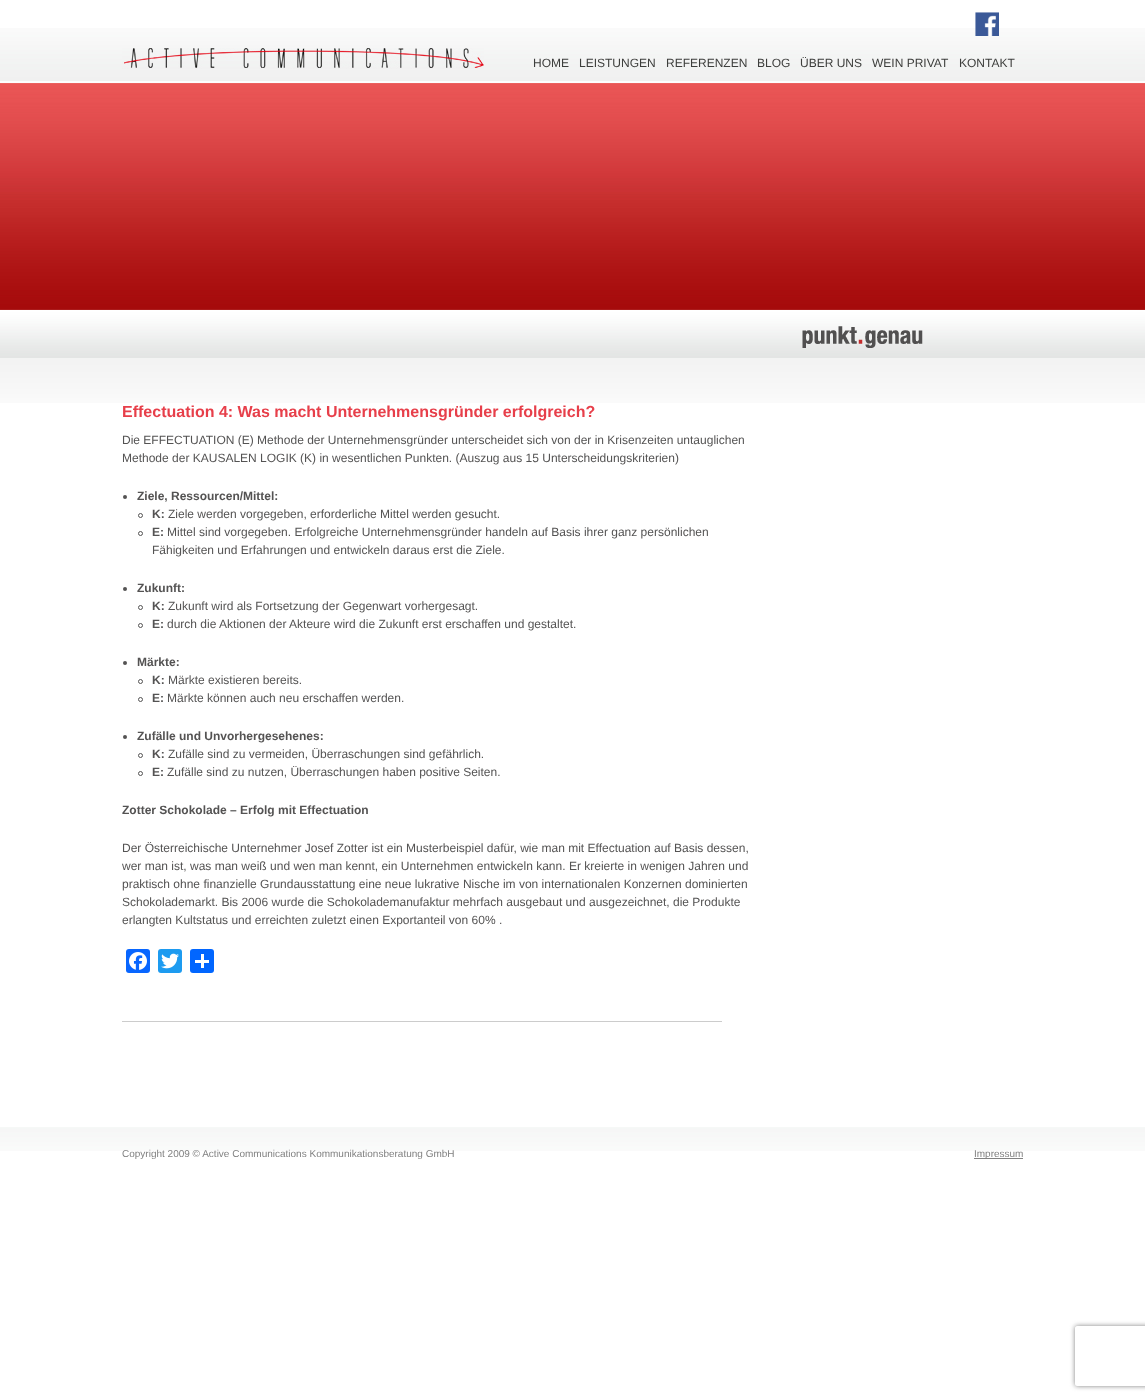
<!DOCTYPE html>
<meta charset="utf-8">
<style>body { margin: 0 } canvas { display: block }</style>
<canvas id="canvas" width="1145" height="1400"></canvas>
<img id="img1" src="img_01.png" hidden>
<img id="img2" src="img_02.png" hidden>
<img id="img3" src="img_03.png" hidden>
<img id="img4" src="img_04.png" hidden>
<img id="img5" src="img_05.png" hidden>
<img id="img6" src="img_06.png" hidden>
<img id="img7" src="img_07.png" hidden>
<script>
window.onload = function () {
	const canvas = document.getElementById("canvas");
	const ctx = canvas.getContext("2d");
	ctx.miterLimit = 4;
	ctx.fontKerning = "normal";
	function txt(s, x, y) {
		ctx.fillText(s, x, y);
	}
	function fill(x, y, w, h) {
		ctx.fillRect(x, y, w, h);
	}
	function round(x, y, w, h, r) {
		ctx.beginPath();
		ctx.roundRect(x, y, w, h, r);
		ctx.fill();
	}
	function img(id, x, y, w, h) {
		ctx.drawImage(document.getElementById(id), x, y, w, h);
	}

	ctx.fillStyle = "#FFFFFF";
	fill(0, 0, 1145, 1400);
	img("img1", 0, 28, 1145, 375);
	img("img2", 975, 12, 24, 24);
	img("img3", 122, 48, 362, 21);
	img("img4", 802, 326, 121, 22);
	ctx.fillStyle = "#CCCCCC";
	fill(122, 1021, 600, 1);
	ctx.fillStyle = "#545353";
	ctx.beginPath();
	ctx.arc(125, 497, 2, 0, Math.PI * 2);
	ctx.fill();
	ctx.beginPath();
	ctx.arc(140.5, 515.5, 2, 0, Math.PI * 2);
	ctx.strokeStyle = "#545353";
	ctx.stroke();
	ctx.beginPath();
	ctx.arc(140.5, 533.5, 2, 0, Math.PI * 2);
	ctx.stroke();
	ctx.beginPath();
	ctx.arc(125, 589, 2, 0, Math.PI * 2);
	ctx.fill();
	ctx.beginPath();
	ctx.arc(140.5, 607.5, 2, 0, Math.PI * 2);
	ctx.stroke();
	ctx.beginPath();
	ctx.arc(140.5, 625.5, 2, 0, Math.PI * 2);
	ctx.stroke();
	ctx.beginPath();
	ctx.arc(125, 663, 2, 0, Math.PI * 2);
	ctx.fill();
	ctx.beginPath();
	ctx.arc(140.5, 681.5, 2, 0, Math.PI * 2);
	ctx.stroke();
	ctx.beginPath();
	ctx.arc(140.5, 699.5, 2, 0, Math.PI * 2);
	ctx.stroke();
	ctx.beginPath();
	ctx.arc(125, 737, 2, 0, Math.PI * 2);
	ctx.fill();
	ctx.beginPath();
	ctx.arc(140.5, 755.5, 2, 0, Math.PI * 2);
	ctx.stroke();
	ctx.beginPath();
	ctx.arc(140.5, 773.5, 2, 0, Math.PI * 2);
	ctx.stroke();
	ctx.fillStyle = "#0866FF";
	round(126, 949, 24, 24, 3);
	img("img5", 129, 952, 18, 18);
	ctx.fillStyle = "#1D9BF0";
	round(158, 949, 24, 24, 3);
	img("img6", 161, 953, 18, 16);
	ctx.fillStyle = "#0166FF";
	round(190, 949, 24, 24, 3);
	ctx.fillStyle = "#FFFFFF";
	fill(201, 954, 3, 14);
	fill(195, 960, 14, 3);
	img("img7", 0, 1127, 1145, 24);
	ctx.fillStyle = "#818181";
	fill(974, 1158, 49, 1);
	ctx.save();
	ctx.beginPath();
	ctx.moveTo(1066, 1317);
	ctx.lineTo(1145, 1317);
	ctx.lineTo(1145, 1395);
	ctx.lineTo(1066, 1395);
	ctx.closePath();
	ctx.moveTo(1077, 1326);
	ctx.lineTo(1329, 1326);
	ctx.bezierCurveTo(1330, 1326, 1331, 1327, 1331, 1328);
	ctx.lineTo(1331, 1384);
	ctx.bezierCurveTo(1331, 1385, 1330, 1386, 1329, 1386);
	ctx.lineTo(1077, 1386);
	ctx.bezierCurveTo(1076, 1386, 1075, 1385, 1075, 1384);
	ctx.lineTo(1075, 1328);
	ctx.bezierCurveTo(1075, 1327, 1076, 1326, 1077, 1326);
	ctx.closePath();
	ctx.clip("evenodd");
	ctx.fillStyle = "#808080";
	ctx.filter = "blur(2.5px)";
	ctx.beginPath();
	ctx.roundRect(1075, 1326, 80, 60, 2);
	ctx.fill();
	ctx.filter = "none";
	ctx.restore();
	ctx.font = "12px Liberation Sans";
	ctx.fillStyle = "#3D3E3C";
	txt("HOME", 533, 67);
	txt("LEISTUNGEN", 579, 67);
	txt("REFERENZEN", 666, 67);
	txt("BLOG", 757, 67);
	txt("ÜBER UNS", 800, 67);
	txt("WEIN PRIVAT", 872, 67);
	txt("KONTAKT", 959, 67);
	ctx.font = "bold 16px Liberation Sans";
	ctx.fillStyle = "#E73F4A";
	txt("Effectuation 4: Was macht Unternehmensgründer erfolgreich?", 122, 417);
	ctx.font = "12px Liberation Sans";
	ctx.fillStyle = "#545353";
	txt("Die EFFECTUATION (E) Methode der Unternehmensgründer unterscheidet sich von der in Krisenzeiten untauglichen", 122, 444);
	txt("Methode der KAUSALEN LOGIK (K) in wesentlichen Punkten. (Auszug aus 15 Unterscheidungskriterien)", 122, 462);
	ctx.font = "bold 12px Liberation Sans";
	txt("Ziele, Ressourcen/Mittel:", 137, 500);
	txt("K:", 152, 518);
	ctx.font = "12px Liberation Sans";
	txt("Ziele werden vorgegeben, erforderliche Mittel werden gesucht.", 168, 518);
	ctx.font = "bold 12px Liberation Sans";
	txt("E:", 152, 536);
	ctx.font = "12px Liberation Sans";
	txt("Mittel sind vorgegeben. Erfolgreiche Unternehmensgründer handeln auf Basis ihrer ganz persönlichen", 167, 536);
	txt("Fähigkeiten und Erfahrungen und entwickeln daraus erst die Ziele.", 152, 554);
	ctx.font = "bold 12px Liberation Sans";
	txt("Zukunft:", 137, 592);
	txt("K:", 152, 610);
	ctx.font = "12px Liberation Sans";
	txt("Zukunft wird als Fortsetzung der Gegenwart vorhergesagt.", 168, 610);
	ctx.font = "bold 12px Liberation Sans";
	txt("E:", 152, 628);
	ctx.font = "12px Liberation Sans";
	txt("durch die Aktionen der Akteure wird die Zukunft erst erschaffen und gestaltet.", 167, 628);
	ctx.font = "bold 12px Liberation Sans";
	txt("Märkte:", 137, 666);
	txt("K:", 152, 684);
	ctx.font = "12px Liberation Sans";
	txt("Märkte existieren bereits.", 168, 684);
	ctx.font = "bold 12px Liberation Sans";
	txt("E:", 152, 702);
	ctx.font = "12px Liberation Sans";
	txt("Märkte können auch neu erschaffen werden.", 167, 702);
	ctx.font = "bold 12px Liberation Sans";
	txt("Zufälle und Unvorhergesehenes:", 137, 740);
	txt("K:", 152, 758);
	ctx.font = "12px Liberation Sans";
	txt("Zufälle sind zu vermeiden, Überraschungen sind gefährlich.", 168, 758);
	ctx.font = "bold 12px Liberation Sans";
	txt("E:", 152, 776);
	ctx.font = "12px Liberation Sans";
	txt("Zufälle sind zu nutzen, Überraschungen haben positive Seiten.", 167, 776);
	ctx.font = "bold 12px Liberation Sans";
	txt("Zotter Schokolade – Erfolg mit Effectuation", 122, 814);
	ctx.font = "12px Liberation Sans";
	txt("Der Österreichische Unternehmer Josef Zotter ist ein Musterbeispiel dafür, wie man mit Effectuation auf Basis dessen,", 122, 852);
	txt("wer man ist, was man weiß und wen man kennt, ein Unternehmen entwickeln kann. Er kreierte in wenigen Jahren und", 122, 870);
	txt("praktisch ohne finanzielle Grundausstattung eine neue lukrative Nische im von internationalen Konzernen dominierten", 122, 888);
	txt("Schokolademarkt. Bis 2006 wurde die Schokolademanufaktur mehrfach ausgebaut und ausgezeichnet, die Produkte", 122, 906);
	txt("erlangten Kultstatus und erreichten zuletzt einen Exportanteil von 60% .", 122, 924);
	ctx.font = "10px Liberation Sans";
	ctx.fillStyle = "#818181";
	txt("Copyright 2009 © Active Communications Kommunikationsberatung GmbH", 122, 1157);
	txt("Impressum", 974, 1157);
};
</script>
